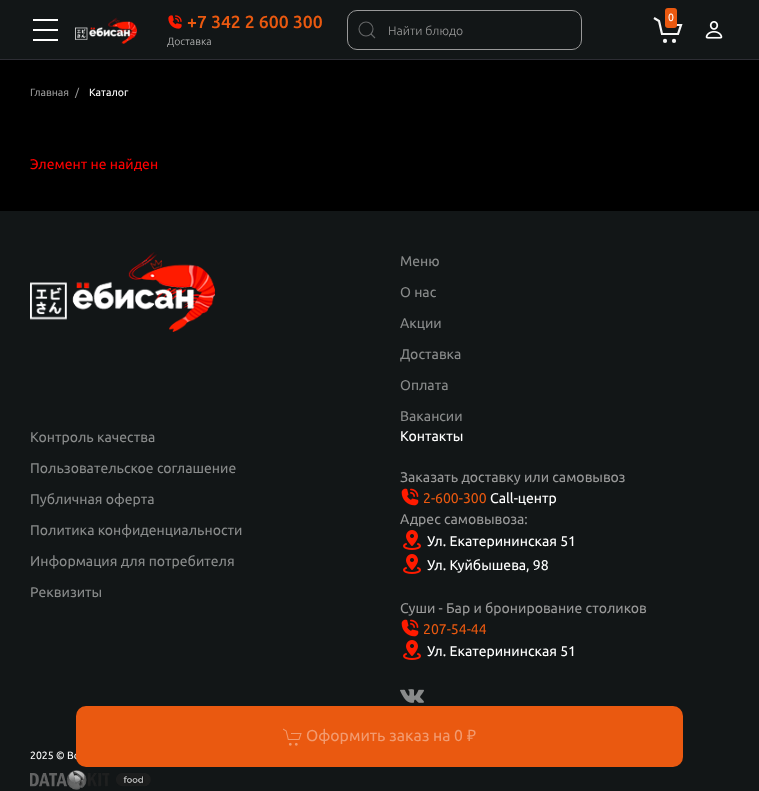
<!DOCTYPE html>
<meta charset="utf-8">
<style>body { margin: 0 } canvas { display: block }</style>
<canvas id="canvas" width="759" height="791"></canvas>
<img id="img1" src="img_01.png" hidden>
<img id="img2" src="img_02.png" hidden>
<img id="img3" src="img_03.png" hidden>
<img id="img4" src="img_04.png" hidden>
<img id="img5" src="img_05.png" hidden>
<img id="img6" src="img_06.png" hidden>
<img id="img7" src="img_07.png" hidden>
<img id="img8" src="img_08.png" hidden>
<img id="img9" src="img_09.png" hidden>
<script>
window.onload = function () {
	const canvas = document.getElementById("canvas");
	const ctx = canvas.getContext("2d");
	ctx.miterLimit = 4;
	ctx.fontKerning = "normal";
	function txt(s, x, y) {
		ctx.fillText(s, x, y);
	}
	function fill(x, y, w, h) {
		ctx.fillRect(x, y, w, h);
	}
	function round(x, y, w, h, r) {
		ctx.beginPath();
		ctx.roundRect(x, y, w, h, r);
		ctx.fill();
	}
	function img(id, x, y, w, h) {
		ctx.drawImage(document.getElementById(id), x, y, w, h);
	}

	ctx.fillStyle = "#000000";
	fill(0, 0, 759, 791);
	ctx.fillStyle = "#121617";
	fill(0, 0, 759, 59);
	ctx.fillStyle = "#2D2D34";
	fill(0, 59, 759, 1);
	ctx.fillStyle = "#FFFFFF";
	fill(33, 19, 25, 2);
	fill(33, 29, 25, 2);
	fill(33, 39, 25, 2);
	img("img1", 75, 17, 62, 27);
	img("img2", 168, 15, 14, 14);
	ctx.beginPath();
	ctx.roundRect(347.5, 10.5, 234, 39, 9.5);
	ctx.strokeStyle = "#999999";
	ctx.stroke();
	ctx.beginPath();
	ctx.arc(366, 29, 7, 0, Math.PI * 2);
	ctx.strokeStyle = "#636566";
	ctx.lineWidth = 1.1;
	ctx.stroke();
	ctx.beginPath();
	ctx.moveTo(371, 34);
	ctx.lineTo(375, 38);
	ctx.closePath();
	ctx.strokeStyle = "rgba(255, 255, 255, 0.34)";
	ctx.stroke();
	ctx.beginPath();
	ctx.moveTo(654, 18);
	ctx.lineTo(659, 21);
	ctx.lineTo(662, 34);
	ctx.lineTo(678, 34);
	ctx.lineTo(681, 25);
	ctx.lineTo(666, 25);
	ctx.strokeStyle = "#F5F5F5";
	ctx.lineWidth = 2.2;
	ctx.stroke();
	ctx.fillStyle = "#EA5910";
	round(665, 8, 12, 20, 3);
	ctx.fillStyle = "#F5F5F5";
	ctx.beginPath();
	ctx.arc(665, 40.9, 2.1, 0, Math.PI * 2);
	ctx.fill();
	ctx.beginPath();
	ctx.arc(674, 40.9, 2.1, 0, Math.PI * 2);
	ctx.fill();
	img("img3", 705, 21, 18, 18);
	ctx.fillStyle = "#121617";
	fill(0, 211, 759, 580);
	img("img4", 30, 252, 185, 80);
	img("img5", 401, 488, 18, 18);
	img("img6", 403, 530, 18, 20);
	img("img6", 403, 554, 18, 20);
	img("img5", 401, 619, 18, 18);
	img("img6", 403, 640, 18, 20);
	img("img7", 400, 689, 24, 14);
	img("img8", 30, 770, 121, 20);
	ctx.font = "500 17.5px Ubuntu";
	ctx.fillStyle = "#EA5910";
	txt("+7 342 2 600 300", 187, 28);
	ctx.font = "300 10.5px Ubuntu";
	ctx.fillStyle = "#B8B9B9";
	txt("Доставка", 167, 45);
	ctx.font = "300 12.25px Ubuntu";
	ctx.fillStyle = "#999999";
	txt("Найти блюдо", 388, 35);
	ctx.font = "10.5px Ubuntu";
	ctx.fillStyle = "#FFFFFF";
	txt("0", 668, 21);
	ctx.fillStyle = "#999999";
	txt("Главная", 30, 96);
	txt("/", 75, 96);
	ctx.fillStyle = "#FFFFFF";
	txt("Каталог", 89, 96);
	ctx.font = "14px Ubuntu";
	ctx.fillStyle = "#FF0000";
	txt("Элемент не найден", 30, 169);
	ctx.fillStyle = "#898B8B";
	txt("Меню", 400, 266);
	txt("О нас", 400, 297);
	txt("Акции", 400, 328);
	txt("Доставка", 400, 359);
	txt("Оплата", 400, 390);
	txt("Вакансии", 400, 421);
	txt("Контроль качества", 30, 442);
	txt("Пользовательское соглашение", 30, 473);
	txt("Публичная оферта", 30, 504);
	txt("Политика конфиденциальности", 30, 535);
	txt("Информация для потребителя", 30, 566);
	txt("Реквизиты", 30, 597);
	ctx.fillStyle = "#FFFFFF";
	txt("Контакты", 400, 441);
	ctx.fillStyle = "#999999";
	txt("Заказать доставку или самовывоз", 400, 482);
	ctx.fillStyle = "#EA5910";
	txt("2-600-300", 423, 503);
	ctx.fillStyle = "#FFFFFF";
	txt("Call-центр", 490, 503);
	ctx.fillStyle = "#999999";
	txt("Адрес самовывоза:", 400, 524);
	ctx.fillStyle = "#FFFFFF";
	txt("Ул. Екатерининская 51", 427, 546);
	txt("Ул. Куйбышева, 98", 427, 570);
	ctx.fillStyle = "#999999";
	txt("Суши - Бар и бронирование столиков", 400, 613);
	ctx.fillStyle = "#EA5910";
	txt("207-54-44", 423, 634);
	ctx.fillStyle = "#FFFFFF";
	txt("Ул. Екатерининская 51", 427, 656);
	ctx.font = "10.5px Ubuntu";
	txt("2025 © Вс", 30, 759);
	ctx.fillStyle = "#EA5910";
	round(76, 706, 607, 61, 10);
	img("img9", 283, 728, 19, 18);
	ctx.font = "15.75px Ubuntu";
	ctx.fillStyle = "#F29B70";
	txt("Оформить заказ на 0", 306, 741);
	ctx.font = "15.75px Noto Sans";
	txt("₽", 467, 741);
};
</script>
